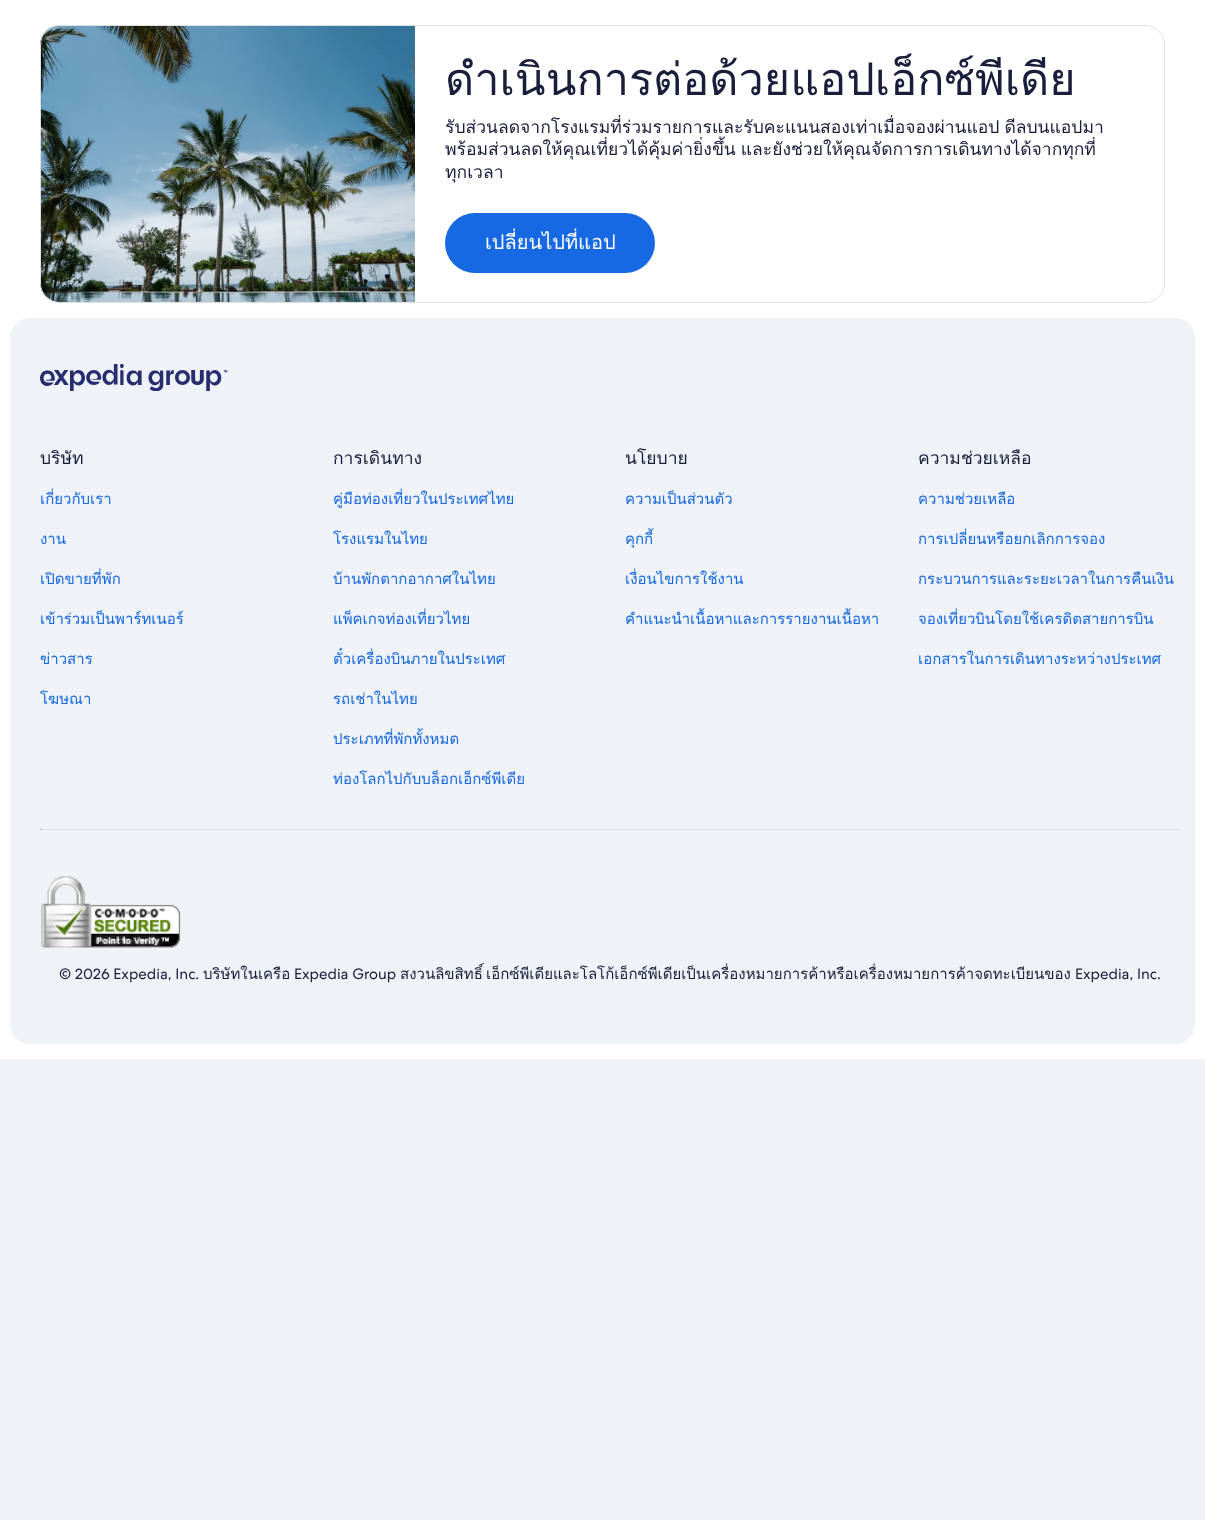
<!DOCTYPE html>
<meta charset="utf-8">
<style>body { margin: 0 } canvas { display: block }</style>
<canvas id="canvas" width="1205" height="1520"></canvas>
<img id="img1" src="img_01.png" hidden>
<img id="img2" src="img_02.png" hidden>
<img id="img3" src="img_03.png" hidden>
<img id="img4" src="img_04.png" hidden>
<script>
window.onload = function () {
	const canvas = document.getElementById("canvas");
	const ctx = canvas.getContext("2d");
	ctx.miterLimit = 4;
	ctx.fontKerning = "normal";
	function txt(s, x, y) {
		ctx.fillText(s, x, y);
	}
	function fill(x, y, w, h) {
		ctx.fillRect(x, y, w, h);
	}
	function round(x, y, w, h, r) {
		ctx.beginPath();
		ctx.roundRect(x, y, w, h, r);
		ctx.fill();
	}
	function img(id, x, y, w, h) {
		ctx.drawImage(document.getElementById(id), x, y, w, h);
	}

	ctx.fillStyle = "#EFF3F7";
	fill(0, 0, 1205, 1520);
	ctx.fillStyle = "#FFFFFF";
	fill(0, 0, 1205, 1059);
	img("img1", 40, 25, 20, 278);
	img("img2", 40, 25, 375, 278);
	ctx.fillStyle = "#1668E3";
	round(445, 213, 210, 60, 30);
	ctx.beginPath();
	ctx.roundRect(40.5, 25.5, 1124, 277, 19.5);
	ctx.strokeStyle = "#DFE0E4";
	ctx.stroke();
	ctx.fillStyle = "#EFF3F7";
	round(10, 318, 1185, 726, 20);
	img("img3", 40, 364, 188, 27);
	ctx.fillStyle = "#DFE0E4";
	fill(40, 829, 1140, 1);
	ctx.fillStyle = "#EEEEEE";
	fill(1179, 829, 1, 1);
	ctx.fillStyle = "#9F9F9F";
	fill(40, 829, 1, 1);
	img("img4", 41, 876, 140, 72);
	ctx.font = "45px Loma";
	ctx.fillStyle = "#191E3B";
	txt("ดำเนินการต่อด้วยแอปเอ็กซ์พีเดีย", 445, 95);
	ctx.wordSpacing = "-1px";
	ctx.font = "17.5px Loma";
	txt("รับส่วนลดจากโรงแรมที่ร่วมรายการและรับคะแนนสองเท่าเมื่อจองผ่านแอป ดีลบนแอปมา", 445, 133);
	txt("พร้อมส่วนลดให้คุณเที่ยวได้คุ้มค่ายิ่งขึ้น และยังช่วยให้คุณจัดการการเดินทางได้จากทุกที่", 445, 155);
	ctx.wordSpacing = "0px";
	txt("ทุกเวลา", 445, 178);
	ctx.font = "20px Loma";
	ctx.fillStyle = "#FFFFFF";
	txt("เปลี่ยนไปที่แอป", 485, 249);
	ctx.font = "17.5px Loma";
	ctx.fillStyle = "#191E3B";
	txt("บริษัท", 40, 464);
	ctx.font = "15px Loma";
	ctx.fillStyle = "#1668E3";
	txt("เกี่ยวกับเรา", 40, 504);
	txt("งาน", 40, 544);
	txt("เปิดขายที่พัก", 40, 584);
	txt("เข้าร่วมเป็นพาร์ทเนอร์", 40, 624);
	txt("ข่าวสาร", 40, 664);
	txt("โฆษณา", 40, 704);
	ctx.font = "17.5px Loma";
	ctx.fillStyle = "#191E3B";
	txt("การเดินทาง", 333, 464);
	ctx.font = "15px Loma";
	ctx.fillStyle = "#1668E3";
	txt("คู่มือท่องเที่ยวในประเทศไทย", 333, 504);
	txt("โรงแรมในไทย", 333, 544);
	txt("บ้านพักตากอากาศในไทย", 333, 584);
	txt("แพ็คเกจท่องเที่ยวไทย", 333, 624);
	txt("ตั๋วเครื่องบินภายในประเทศ", 333, 664);
	txt("รถเช่าในไทย", 333, 704);
	txt("ประเภทที่พักทั้งหมด", 333, 744);
	txt("ท่องโลกไปกับบล็อกเอ็กซ์พีเดีย", 333, 784);
	ctx.font = "17.5px Loma";
	ctx.fillStyle = "#191E3B";
	txt("นโยบาย", 625, 464);
	ctx.font = "15px Loma";
	ctx.fillStyle = "#1668E3";
	txt("ความเป็นส่วนตัว", 625, 504);
	txt("คุกกี้", 625, 544);
	txt("เงื่อนไขการใช้งาน", 625, 584);
	txt("คำแนะนำเนื้อหาและการรายงานเนื้อหา", 625, 624);
	ctx.font = "17.5px Loma";
	ctx.fillStyle = "#191E3B";
	txt("ความช่วยเหลือ", 918, 464);
	ctx.font = "15px Loma";
	ctx.fillStyle = "#1668E3";
	txt("ความช่วยเหลือ", 918, 504);
	txt("การเปลี่ยนหรือยกเลิกการจอง", 918, 544);
	txt("กระบวนการและระยะเวลาในการคืนเงิน", 918, 584);
	txt("จองเที่ยวบินโดยใช้เครดิตสายการบิน", 918, 624);
	txt("เอกสารในการเดินทางระหว่างประเทศ", 918, 664);
	ctx.font = "15px 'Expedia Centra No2'";
	ctx.fillStyle = "#191E3B";
	txt("© 2026 Expedia, Inc.", 59, 979);
	ctx.font = "15px Loma";
	txt("บริษัทในเครือ", 203, 979);
	ctx.font = "15px 'Expedia Centra No2'";
	txt("Expedia Group", 294, 979);
	ctx.font = "15px Loma";
	txt("สงวนลิขสิทธิ์", 400, 979);
	txt("เอ็กซ์พีเดียและโลโก้เอ็กซ์พีเดียเป็นเครื่องหมายการค้าหรือเครื่องหมายการค้าจดทะเบียนของ", 486, 979);
	ctx.font = "15px 'Expedia Centra No2'";
	txt("Expedia, Inc.", 1075, 979);
};
</script>
